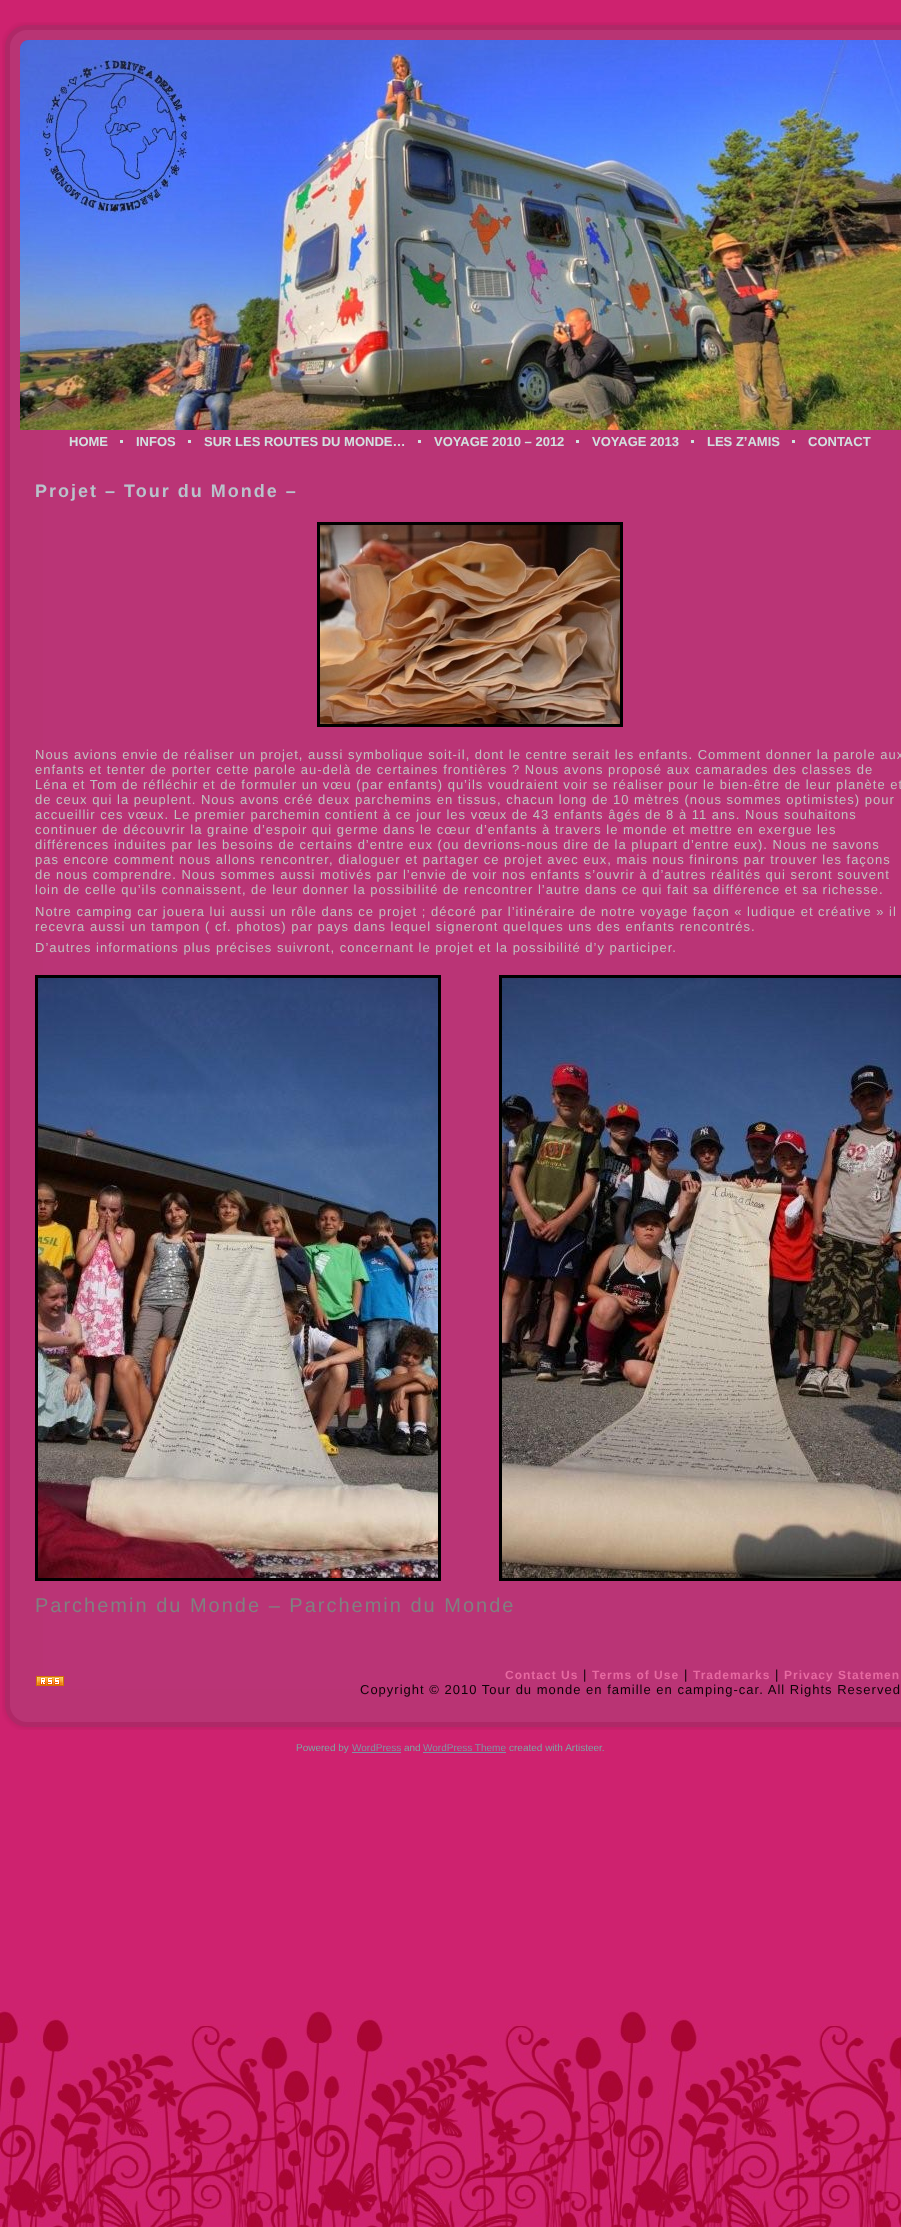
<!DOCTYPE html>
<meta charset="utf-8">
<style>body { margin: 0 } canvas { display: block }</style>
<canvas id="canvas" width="901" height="2227"></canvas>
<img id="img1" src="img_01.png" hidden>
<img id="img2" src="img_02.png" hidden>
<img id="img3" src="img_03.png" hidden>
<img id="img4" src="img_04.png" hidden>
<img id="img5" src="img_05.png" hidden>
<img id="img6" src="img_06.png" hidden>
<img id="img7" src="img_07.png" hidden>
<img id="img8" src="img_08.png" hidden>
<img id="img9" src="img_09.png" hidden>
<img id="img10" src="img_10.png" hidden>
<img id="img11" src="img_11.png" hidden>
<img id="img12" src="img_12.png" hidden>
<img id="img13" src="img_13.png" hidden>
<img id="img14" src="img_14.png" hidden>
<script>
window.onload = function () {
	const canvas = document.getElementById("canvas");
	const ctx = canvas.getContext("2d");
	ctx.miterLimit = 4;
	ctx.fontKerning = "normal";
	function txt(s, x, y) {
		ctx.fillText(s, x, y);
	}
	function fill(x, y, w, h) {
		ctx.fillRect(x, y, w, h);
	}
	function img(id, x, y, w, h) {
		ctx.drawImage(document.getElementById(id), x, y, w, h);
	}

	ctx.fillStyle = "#CE226F";
	fill(0, 0, 901, 2227);
	img("img1", 0, 2010, 901, 217);
	img("img2", 2, 22, 41, 41);
	img("img3", 43, 22, 854, 18);
	img("img4", 897, 22, 4, 18);
	img("img5", 2, 63, 41, 1626);
	ctx.fillStyle = "#BA3476";
	fill(43, 430, 854, 1259);
	ctx.fillStyle = "#BA3475";
	fill(897, 430, 4, 1259);
	img("img6", 20, 40, 881, 390);
	img("img7", 28, 48, 873, 374);
	ctx.fillStyle = "#D2E0DF";
	fill(120, 440, 3, 3);
	fill(188, 440, 3, 3);
	fill(418, 440, 3, 3);
	fill(576, 440, 3, 3);
	fill(691, 440, 3, 3);
	fill(792, 440, 3, 3);
	ctx.strokeStyle = "#000000";
	ctx.lineWidth = 3;
	ctx.strokeRect(318.5, 523.5, 303, 202);
	img("img8", 320, 525, 300, 199);
	ctx.strokeRect(36.5, 976.5, 403, 603);
	img("img9", 38, 978, 400, 600);
	ctx.strokeRect(500.5, 976.5, 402, 603);
	img("img10", 502, 978, 399, 600);
	img("img11", 36, 1676, 28, 10);
	img("img12", 2, 1689, 41, 41);
	img("img13", 43, 1689, 854, 41);
	img("img14", 897, 1689, 4, 41);
	ctx.fillStyle = "#8192A2";
	fill(352, 1752, 49, 1);
	fill(423, 1752, 83, 1);
	ctx.font = "bold 13px Liberation Sans";
	ctx.fillStyle = "#D2E0DF";
	txt("HOME", 69, 446);
	txt("INFOS", 136, 446);
	txt("SUR LES ROUTES DU MONDE…", 204, 446);
	txt("VOYAGE 2010 – 2012", 434, 446);
	txt("VOYAGE 2013", 592, 446);
	txt("LES Z’AMIS", 707, 446);
	txt("CONTACT", 808, 446);
	ctx.letterSpacing = "2px";
	ctx.font = "bold 18px Liberation Sans";
	ctx.fillStyle = "#B9C2CB";
	txt("Projet – Tour du Monde –", 35, 497);
	ctx.letterSpacing = "1px";
	ctx.font = "13px Liberation Sans";
	ctx.fillStyle = "#C0C0C0";
	txt("Nous avions envie de réaliser un projet, aussi symbolique soit-il, dont le centre serait les enfants. Comment donner la parole aux", 35, 759);
	txt("enfants et tenter de porter cette parole au-delà de certaines frontières ? Nous avons proposé aux camarades des classes de", 35, 774);
	txt("Léna et Tom de réfléchir et de formuler un vœu (par enfants) qu’ils voudraient voir se réaliser pour le bien-être de leur planète et", 35, 789);
	txt("de ceux qui la peuplent. Nous avons créé deux parchemins en tissus, chacun long de 10 mètres (nous sommes optimistes) pour", 35, 804);
	txt("accueillir ces vœux. Le premier parchemin contient à ce jour les vœux de 43 enfants âgés de 8 à 11 ans. Nous souhaitons", 35, 819);
	txt("continuer de découvrir la graine d’espoir qui germe dans le cœur d’enfants à travers le monde et mettre en exergue les", 35, 834);
	txt("différences induites par les besoins de certains d’entre eux (ou devrions-nous dire de la plupart d’entre eux). Nous ne savons", 35, 849);
	txt("pas encore comment nous allons rencontrer, dialoguer et partager ce projet avec eux, mais nous finirons par trouver les façons", 35, 864);
	txt("de nous comprendre. Nous sommes aussi motivés par l’envie de voir nos enfants s’ouvrir à d’autres réalités qui seront souvent", 35, 879);
	txt("loin de celle qu’ils connaissent, de leur donner la possibilité de rencontrer l’autre dans ce qui fait sa différence et sa richesse.", 35, 894);
	txt("Notre camping car jouera lui aussi un rôle dans ce projet ; décoré par l’itinéraire de notre voyage façon « ludique et créative » il", 35, 916);
	txt("recevra aussi un tampon ( cf. photos) par pays dans lequel signeront quelques uns des enfants rencontrés.", 35, 931);
	txt("D’autres informations plus précises suivront, concernant le projet et la possibilité d’y participer.", 35, 952);
	ctx.letterSpacing = "2px";
	ctx.font = "20px Liberation Sans";
	ctx.fillStyle = "#808080";
	txt("Parchemin du Monde – Parchemin du Monde", 35, 1612);
	ctx.letterSpacing = "1px";
	ctx.font = "bold 12px Liberation Sans";
	ctx.fillStyle = "#E76AA2";
	txt("Contact Us", 505, 1679);
	ctx.font = "13px Liberation Sans";
	ctx.fillStyle = "#0D0207";
	txt("|", 583, 1679);
	ctx.font = "bold 12px Liberation Sans";
	ctx.fillStyle = "#E76AA2";
	txt("Terms of Use", 592, 1679);
	ctx.font = "13px Liberation Sans";
	ctx.fillStyle = "#0D0207";
	txt("|", 684, 1679);
	ctx.font = "bold 12px Liberation Sans";
	ctx.fillStyle = "#E76AA2";
	txt("Trademarks", 693, 1679);
	ctx.font = "13px Liberation Sans";
	ctx.fillStyle = "#0D0207";
	txt("|", 775, 1679);
	ctx.font = "bold 12px Liberation Sans";
	ctx.fillStyle = "#E76AA2";
	txt("Privacy Statemen", 784, 1679);
	ctx.font = "13px Liberation Sans";
	ctx.fillStyle = "#0D0207";
	txt("Copyright © 2010 Tour du monde en famille en camping-car. All Rights Reserved", 360, 1694);
	ctx.letterSpacing = "0px";
	ctx.font = "10px Liberation Sans";
	ctx.fillStyle = "#7EA5A3";
	txt("Powered by", 296, 1751);
	ctx.fillStyle = "#8192A2";
	txt("WordPress", 352, 1751);
	ctx.fillStyle = "#7EA5A3";
	txt("and", 404, 1751);
	ctx.fillStyle = "#8192A2";
	txt("WordPress Theme", 423, 1751);
	ctx.fillStyle = "#7EA5A3";
	txt("created with Artisteer.", 509, 1751);
};
</script>
